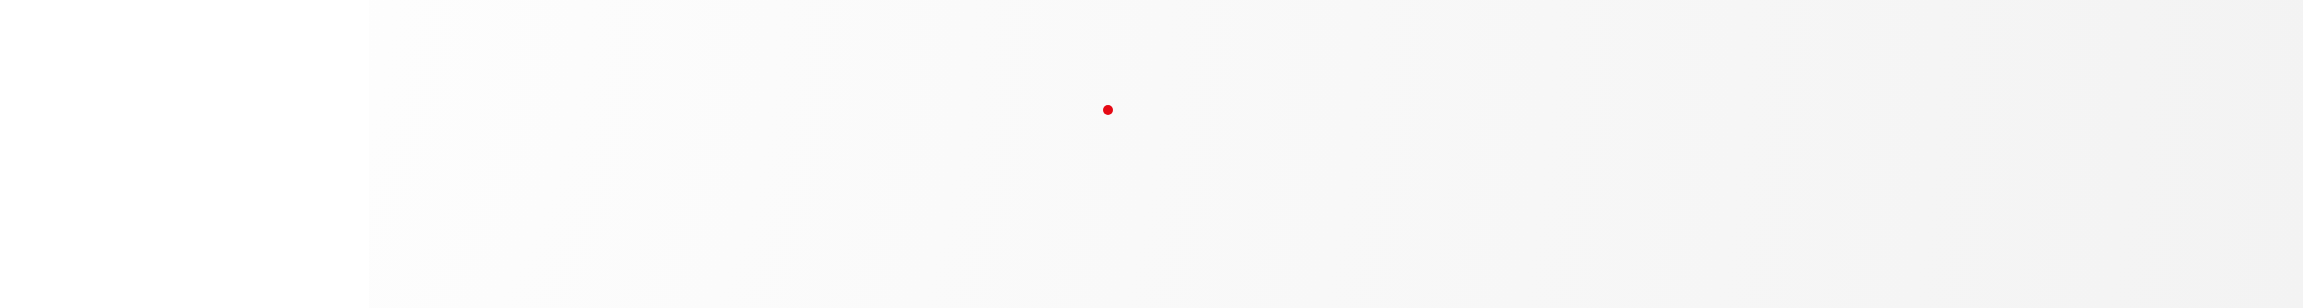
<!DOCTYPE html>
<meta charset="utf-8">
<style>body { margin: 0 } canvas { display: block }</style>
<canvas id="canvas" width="2303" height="308"></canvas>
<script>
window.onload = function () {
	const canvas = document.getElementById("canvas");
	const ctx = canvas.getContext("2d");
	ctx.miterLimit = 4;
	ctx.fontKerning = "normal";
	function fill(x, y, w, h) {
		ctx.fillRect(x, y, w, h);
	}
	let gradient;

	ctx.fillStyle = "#FFFFFF";
	fill(0, 0, 2303, 308);
	gradient = ctx.createRadialGradient(0, 0, 0, 0, 0, 2324);
	gradient.addColorStop(0, "#FFFFFF");
	gradient.addColorStop(1, "#F3F3F3");
	ctx.fillStyle = gradient;
	fill(369, 0, 1934, 308);
	ctx.fillStyle = "#E50914";
	ctx.beginPath();
	ctx.arc(1108, 110, 5, 0, Math.PI * 2);
	ctx.fill();
};
</script>
